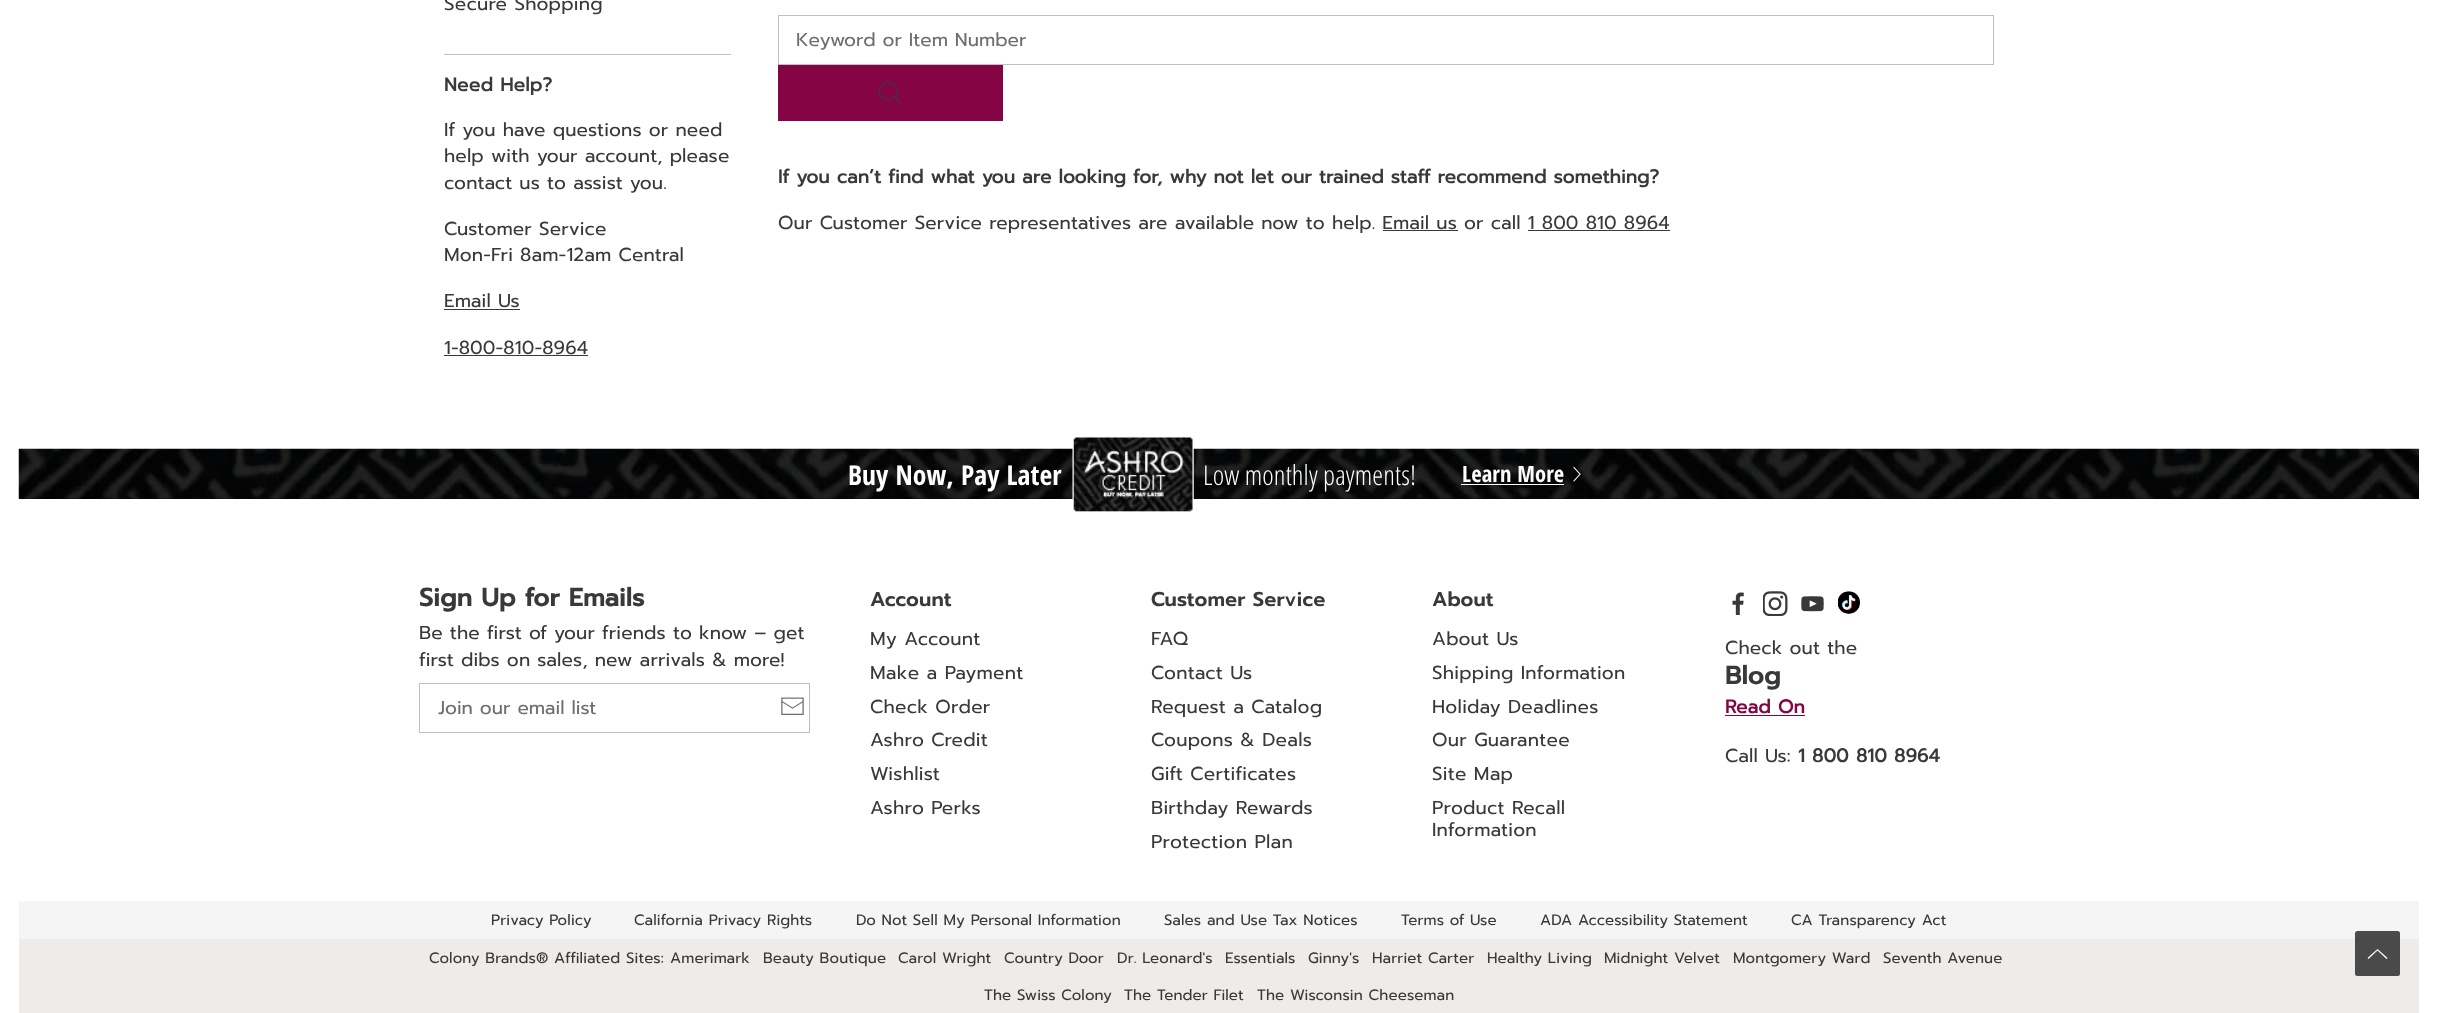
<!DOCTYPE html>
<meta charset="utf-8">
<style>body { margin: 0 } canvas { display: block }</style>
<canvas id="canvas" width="2437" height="1013"></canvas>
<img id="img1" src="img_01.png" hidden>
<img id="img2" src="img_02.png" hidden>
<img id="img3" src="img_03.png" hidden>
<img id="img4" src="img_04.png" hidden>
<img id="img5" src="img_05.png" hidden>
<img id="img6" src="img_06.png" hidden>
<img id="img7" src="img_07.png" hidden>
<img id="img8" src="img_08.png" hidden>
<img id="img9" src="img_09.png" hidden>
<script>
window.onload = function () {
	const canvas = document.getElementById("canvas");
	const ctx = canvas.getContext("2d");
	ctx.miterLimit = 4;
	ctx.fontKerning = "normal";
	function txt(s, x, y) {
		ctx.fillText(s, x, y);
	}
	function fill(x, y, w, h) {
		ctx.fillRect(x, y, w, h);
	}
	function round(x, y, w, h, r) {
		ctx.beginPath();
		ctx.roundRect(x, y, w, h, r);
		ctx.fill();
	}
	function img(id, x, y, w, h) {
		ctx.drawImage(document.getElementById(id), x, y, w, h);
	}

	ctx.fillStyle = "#FFFFFF";
	fill(0, 0, 2437, 1013);
	ctx.fillStyle = "#C0C0C0";
	fill(444, 54, 287, 1);
	ctx.fillStyle = "#393939";
	fill(444, 309, 76, 1);
	fill(444, 355, 144, 1);
	ctx.strokeStyle = "#C0C0C0";
	ctx.strokeRect(778.5, 15.5, 1215, 49);
	ctx.fillStyle = "#850444";
	fill(778, 65, 225, 56);
	img("img1", 878, 81, 24, 23);
	ctx.fillStyle = "#393939";
	fill(1383, 230, 75, 1);
	fill(1528, 230, 142, 1);
	ctx.fillStyle = "#000000";
	fill(19, 449, 2400, 50);
	img("img2", 18, 448, 2401, 51);
	img("img3", 1072, 436, 122, 76);
	ctx.fillStyle = "#FFFFFF";
	fill(1461, 484, 103, 1);
	img("img4", 1573, 466, 8, 16);
	ctx.strokeRect(419.5, 683.5, 390, 49);
	img("img5", 781, 697, 23, 18);
	img("img6", 1732, 592, 12, 23);
	img("img7", 1763, 591, 25, 25);
	img("img8", 1801, 596, 23, 16);
	img("img9", 1838, 591, 22, 23);
	ctx.fillStyle = "#850444";
	fill(1725, 715, 80, 1);
	ctx.fillStyle = "#EEEBE9";
	fill(19, 939, 2400, 74);
	ctx.fillStyle = "#F5F5F5";
	fill(19, 901, 2400, 38);
	ctx.fillStyle = "rgba(57, 57, 57, 0.9)";
	round(2355, 931, 45, 45, 2.5);
	ctx.fillStyle = "#FFFFFF";
	ctx.beginPath();
	ctx.moveTo(2386.5, 959);
	ctx.lineTo(2377.5, 950.5);
	ctx.lineTo(2368.5, 959);
	ctx.lineTo(2367.5, 958);
	ctx.lineTo(2377.5, 949);
	ctx.lineTo(2387.5, 958);
	ctx.closePath();
	ctx.fill("evenodd");
	ctx.letterSpacing = "0.25px";
	ctx.font = "18.75px Prompt";
	ctx.fillStyle = "#393939";
	txt("Secure Shopping", 444, 10);
	ctx.font = "bold 18.75px 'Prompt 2'";
	txt("Need Help?", 444, 91);
	ctx.letterSpacing = "0.12px";
	ctx.font = "18.75px Prompt";
	txt("If you have questions or need", 444, 136);
	txt("help with your account, please", 444, 162);
	txt("contact us to assist you.", 444, 189);
	txt("Customer Service", 444, 235);
	txt("Mon-Fri 8am-12am Central", 444, 261);
	txt("Email Us", 444, 307);
	txt("1-800-810-8964", 444, 354);
	ctx.letterSpacing = "0px";
	ctx.fillStyle = "#6E6E6E";
	txt("Keyword or Item Number", 796, 46);
	ctx.letterSpacing = "0.12px";
	ctx.font = "bold 18.75px 'Prompt 2'";
	ctx.fillStyle = "#393939";
	txt("If you can’t find what you are looking for, why not let our trained staff recommend something?", 778, 183);
	ctx.font = "18.75px Prompt";
	txt("Our Customer Service representatives are available now to help. Email us or call 1 800 810 8964", 778, 229);
	ctx.font = "bold 27.5px Open Sans Condensed";
	ctx.fillStyle = "#FFFFFF";
	txt("Buy Now, Pay Later", 848, 485);
	ctx.font = "300 27.5px Open Sans Condensed";
	txt("Low monthly payments!", 1203, 485);
	ctx.font = "bold 22.5px Open Sans Condensed";
	txt("Learn More", 1462, 482);
	ctx.font = "bold 25px Prompt";
	ctx.fillStyle = "#393939";
	txt("Sign Up for Emails", 419, 606);
	ctx.font = "18.75px Prompt";
	txt("Be the first of your friends to know – get", 419, 639);
	txt("first dibs on sales, new arrivals & more!", 419, 666);
	ctx.letterSpacing = "0px";
	ctx.fillStyle = "#6E6E6E";
	txt("Join our email list", 438, 714);
	ctx.letterSpacing = "0.12px";
	ctx.font = "600 20px Prompt";
	ctx.fillStyle = "#393939";
	txt("Account", 870, 606);
	ctx.letterSpacing = "0.25px";
	ctx.font = "18.75px Prompt";
	txt("My Account", 870, 645);
	txt("Make a Payment", 870, 679);
	txt("Check Order", 870, 713);
	txt("Ashro Credit", 870, 746);
	txt("Wishlist", 870, 780);
	txt("Ashro Perks", 870, 814);
	ctx.letterSpacing = "0.12px";
	ctx.font = "600 20px Prompt";
	txt("Customer Service", 1151, 606);
	ctx.letterSpacing = "0.25px";
	ctx.font = "18.75px Prompt";
	txt("FAQ", 1151, 645);
	txt("Contact Us", 1151, 679);
	txt("Request a Catalog", 1151, 713);
	txt("Coupons & Deals", 1151, 746);
	txt("Gift Certificates", 1151, 780);
	txt("Birthday Rewards", 1151, 814);
	txt("Protection Plan", 1151, 848);
	ctx.letterSpacing = "0.12px";
	ctx.font = "600 20px Prompt";
	txt("About", 1432, 606);
	ctx.letterSpacing = "0.25px";
	ctx.font = "18.75px Prompt";
	txt("About Us", 1432, 645);
	txt("Shipping Information", 1432, 679);
	txt("Holiday Deadlines", 1432, 713);
	txt("Our Guarantee", 1432, 746);
	txt("Site Map", 1432, 780);
	txt("Product Recall", 1432, 814);
	txt("Information", 1432, 836);
	ctx.letterSpacing = "0.12px";
	txt("Check out the", 1725, 654);
	ctx.font = "bold 25px Prompt";
	txt("Blog", 1725, 684);
	ctx.font = "bold 18.75px 'Prompt 2'";
	ctx.fillStyle = "#850444";
	txt("Read On", 1725, 713);
	ctx.font = "18.75px Prompt";
	ctx.fillStyle = "#393939";
	txt("Call Us:", 1725, 762);
	ctx.font = "bold 18.75px 'Prompt 2'";
	txt("1 800 810 8964", 1798, 762);
	ctx.font = "15px Prompt";
	txt("Privacy Policy", 491, 925);
	txt("California Privacy Rights", 634, 925);
	txt("Do Not Sell My Personal Information", 856, 925);
	txt("Sales and Use Tax Notices", 1164, 925);
	txt("Terms of Use", 1401, 925);
	txt("ADA Accessibility Statement", 1540, 925);
	txt("CA Transparency Act", 1791, 925);
	txt("Colony Brands® Affiliated Sites:", 429, 963);
	txt("Amerimark", 670, 963);
	txt("Beauty Boutique", 763, 963);
	txt("Carol Wright", 898, 963);
	txt("Country Door", 1004, 963);
	txt("Dr. Leonard's", 1117, 963);
	txt("Essentials", 1225, 963);
	txt("Ginny's", 1308, 963);
	txt("Harriet Carter", 1372, 963);
	txt("Healthy Living", 1487, 963);
	txt("Midnight Velvet", 1604, 963);
	txt("Montgomery Ward", 1733, 963);
	txt("Seventh Avenue", 1883, 963);
	txt("The Swiss Colony", 984, 1000);
	txt("The Tender Filet", 1124, 1000);
	txt("The Wisconsin Cheeseman", 1257, 1000);
};
</script>
